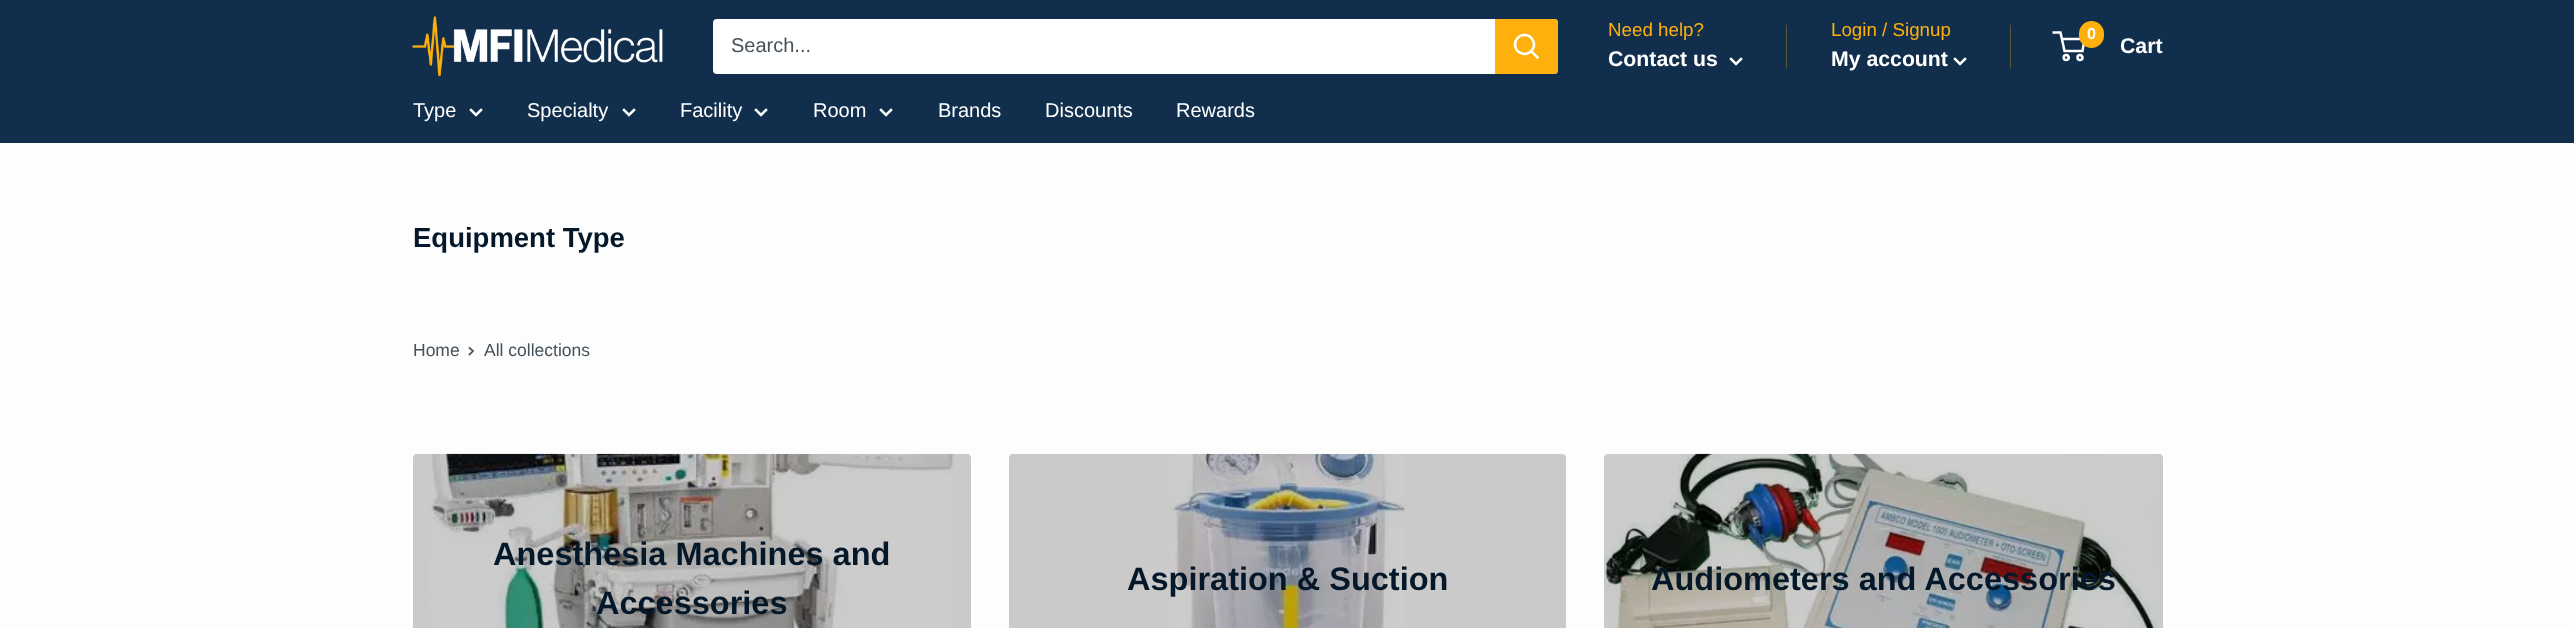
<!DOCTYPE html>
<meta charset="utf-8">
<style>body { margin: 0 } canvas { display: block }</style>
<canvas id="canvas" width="2574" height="628"></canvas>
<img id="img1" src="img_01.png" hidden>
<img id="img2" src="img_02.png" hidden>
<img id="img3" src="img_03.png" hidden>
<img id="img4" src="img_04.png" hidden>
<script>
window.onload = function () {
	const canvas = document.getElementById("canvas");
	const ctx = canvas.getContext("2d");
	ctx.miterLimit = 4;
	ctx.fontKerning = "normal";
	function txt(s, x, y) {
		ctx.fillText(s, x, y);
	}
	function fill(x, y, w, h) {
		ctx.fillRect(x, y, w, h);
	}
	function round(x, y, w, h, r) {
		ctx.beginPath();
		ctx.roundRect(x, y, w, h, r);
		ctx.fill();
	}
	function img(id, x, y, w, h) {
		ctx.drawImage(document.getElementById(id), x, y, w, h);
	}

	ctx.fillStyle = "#FDFDFD";
	fill(0, 0, 2574, 628);
	ctx.fillStyle = "#112F4C";
	fill(0, 0, 2574, 143);
	img("img1", 412, 16, 251, 61);
	ctx.fillStyle = "#FFFFFF";
	round(713, 19, 845, 55, 4);
	ctx.fillStyle = "#FFB00C";
	ctx.beginPath();
	ctx.roundRect(1495, 19, 63, 55, [0, 4, 4, 0]);
	ctx.fill();
	ctx.beginPath();
	ctx.moveTo(1537.5, 57.5);
	ctx.lineTo(1531, 51);
	ctx.strokeStyle = "#FFFFFF";
	ctx.lineWidth = 2.5;
	ctx.lineCap = "square";
	ctx.stroke();
	ctx.beginPath();
	ctx.arc(1524.5, 44.5, 9.5, 0, Math.PI * 2);
	ctx.stroke();
	ctx.fillStyle = "#585639";
	fill(1786, 25, 1, 43);
	ctx.beginPath();
	ctx.moveTo(1741, 59);
	ctx.lineTo(1736, 64);
	ctx.lineTo(1731, 59);
	ctx.stroke();
	fill(2010, 25, 1, 43);
	ctx.beginPath();
	ctx.moveTo(1965, 59);
	ctx.lineTo(1960, 64);
	ctx.lineTo(1955, 59);
	ctx.stroke();
	ctx.beginPath();
	ctx.arc(2066.2, 57.5, 2.5, 0, Math.PI * 2);
	ctx.stroke();
	ctx.beginPath();
	ctx.arc(2080, 57.5, 2.5, 0, Math.PI * 2);
	ctx.stroke();
	ctx.beginPath();
	ctx.moveTo(2061.5, 39);
	ctx.lineTo(2084.5, 39);
	ctx.lineTo(2082.5, 51);
	ctx.lineTo(2064.5, 51);
	ctx.lineTo(2060.5, 32.5);
	ctx.lineTo(2052.5, 32.5);
	ctx.lineCap = "butt";
	ctx.stroke();
	ctx.fillStyle = "#FFB00C";
	round(2079, 21, 25, 27, 12.5);
	ctx.beginPath();
	ctx.moveTo(481, 110);
	ctx.lineTo(476, 115);
	ctx.lineTo(471, 110);
	ctx.lineCap = "square";
	ctx.stroke();
	ctx.beginPath();
	ctx.moveTo(634, 110);
	ctx.lineTo(629, 115);
	ctx.lineTo(624, 110);
	ctx.stroke();
	ctx.beginPath();
	ctx.moveTo(766, 110);
	ctx.lineTo(761, 115);
	ctx.lineTo(756, 110);
	ctx.stroke();
	ctx.beginPath();
	ctx.moveTo(891, 110);
	ctx.lineTo(886, 115);
	ctx.lineTo(881, 110);
	ctx.stroke();
	ctx.beginPath();
	ctx.moveTo(469.5, 348);
	ctx.lineTo(473, 351);
	ctx.lineTo(469.5, 354.5);
	ctx.strokeStyle = "#455159";
	ctx.lineWidth = 1.7;
	ctx.stroke();
	img("img2", 429, 453, 525, 175);
	ctx.fillStyle = "rgba(0, 0, 0, 0.2)";
	round(413, 454, 558, 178, 4);
	img("img3", 1170, 453, 235, 175);
	round(1009, 454, 557, 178, 4);
	img("img4", 1604, 453, 554, 175);
	round(1604, 454, 559, 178, 4);
	ctx.font = "20px Liberation Sans";
	ctx.fillStyle = "#455159";
	txt("Search...", 731, 52);
	ctx.font = "18.75px Liberation Sans";
	ctx.fillStyle = "#FFB00C";
	txt("Need help?", 1608, 36);
	ctx.font = "bold 21.25px Liberation Sans";
	ctx.fillStyle = "#FFFFFF";
	txt("Contact us", 1608, 66);
	ctx.font = "18.75px Liberation Sans";
	ctx.fillStyle = "#FFB00C";
	txt("Login / Signup", 1831, 36);
	ctx.font = "bold 21.25px Liberation Sans";
	ctx.fillStyle = "#FFFFFF";
	txt("My account", 1831, 66);
	ctx.font = "bold 16px Liberation Sans";
	txt("0", 2087, 39);
	ctx.font = "bold 21.25px Liberation Sans";
	txt("Cart", 2120, 53);
	ctx.font = "20px Liberation Sans";
	txt("Type", 413, 117);
	txt("Specialty", 527, 117);
	txt("Facility", 680, 117);
	txt("Room", 813, 117);
	txt("Brands", 938, 117);
	txt("Discounts", 1045, 117);
	txt("Rewards", 1176, 117);
	ctx.font = "bold 27.5px Liberation Sans";
	ctx.fillStyle = "#05182A";
	txt("Equipment Type", 413, 247);
	ctx.font = "17.5px Liberation Sans";
	ctx.fillStyle = "#455159";
	txt("Home", 413, 356);
	txt("All collections", 484, 356);
	ctx.font = "bold 32.5px Liberation Sans";
	ctx.fillStyle = "#05182A";
	txt("Anesthesia Machines and", 493, 565);
	txt("Accessories", 596, 614);
	txt("Aspiration & Suction", 1127, 590);
	txt("Audiometers and Accessories", 1651, 590);
};
</script>
